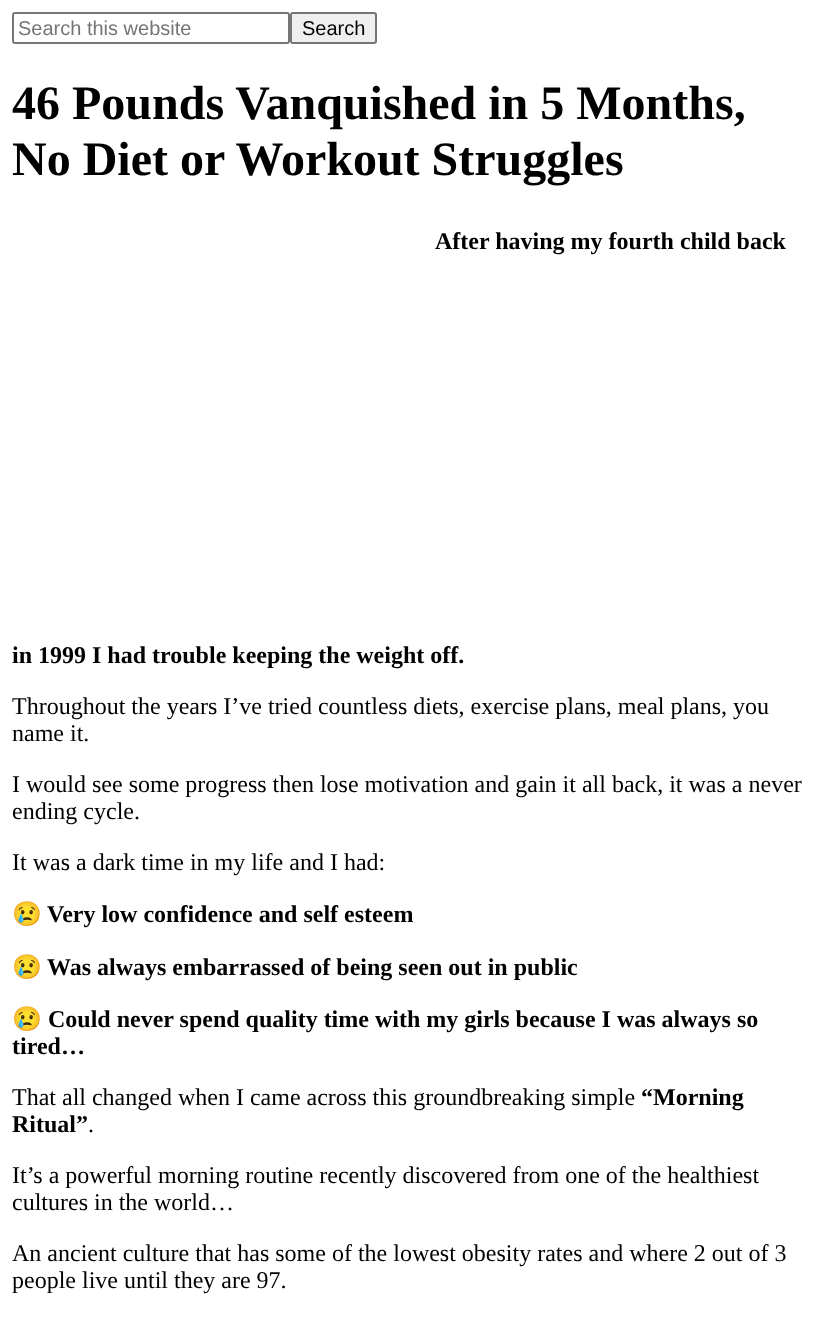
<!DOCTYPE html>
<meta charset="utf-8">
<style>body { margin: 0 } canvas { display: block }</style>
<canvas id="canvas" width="818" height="1329"></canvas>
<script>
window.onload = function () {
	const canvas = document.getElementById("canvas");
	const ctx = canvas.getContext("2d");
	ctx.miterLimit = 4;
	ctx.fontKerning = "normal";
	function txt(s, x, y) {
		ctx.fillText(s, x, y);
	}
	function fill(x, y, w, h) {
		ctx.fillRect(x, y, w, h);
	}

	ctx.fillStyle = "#FFFFFF";
	fill(0, 0, 818, 1329);
	ctx.beginPath();
	ctx.roundRect(13, 13, 276, 30, 2);
	ctx.strokeStyle = "#767676";
	ctx.lineWidth = 2;
	ctx.stroke();
	ctx.fillStyle = "#EFEFEF";
	ctx.beginPath();
	ctx.roundRect(291, 13, 85, 30, 2);
	ctx.fill();
	ctx.stroke();
	ctx.font = "20px Liberation Sans";
	ctx.fillStyle = "#757575";
	txt("Search this website", 18, 35);
	ctx.fillStyle = "#000000";
	txt("Search", 302, 35);
	ctx.font = "bold 48px Liberation Serif";
	txt("46 Pounds Vanquished in 5 Months,", 12, 119);
	txt("No Diet or Workout Struggles", 12, 175);
	ctx.font = "bold 24px Liberation Serif";
	txt("After having my fourth child back", 435, 249);
	txt("in 1999 I had trouble keeping the weight off.", 12, 663);
	ctx.font = "24px Liberation Serif";
	txt("Throughout the years I’ve tried countless diets, exercise plans, meal plans, you", 12, 714);
	txt("name it.", 12, 741);
	txt("I would see some progress then lose motivation and gain it all back, it was a never", 12, 792);
	txt("ending cycle.", 12, 819);
	txt("It was a dark time in my life and I had:", 12, 870);
	ctx.font = "bold 24px Noto Color Emoji";
	txt("😢", 12, 922);
	ctx.font = "bold 24px Liberation Serif";
	txt("Very low confidence and self esteem", 47, 922);
	ctx.font = "bold 24px Noto Color Emoji";
	txt("😢", 12, 975);
	ctx.font = "bold 24px Liberation Serif";
	txt("Was always embarrassed of being seen out in public", 47, 975);
	ctx.font = "bold 24px Noto Color Emoji";
	txt("😢", 12, 1027);
	ctx.font = "bold 24px Liberation Serif";
	txt("Could never spend quality time with my girls because I was always so", 48, 1027);
	txt("tired…", 12, 1054);
	ctx.font = "24px Liberation Serif";
	txt("That all changed when I came across this groundbreaking simple", 12, 1105);
	ctx.font = "bold 24px Liberation Serif";
	txt("“Morning", 641, 1105);
	txt("Ritual”", 12, 1132);
	ctx.font = "24px Liberation Serif";
	txt(".", 88, 1132);
	txt("It’s a powerful morning routine recently discovered from one of the healthiest", 12, 1183);
	txt("cultures in the world…", 12, 1210);
	txt("An ancient culture that has some of the lowest obesity rates and where 2 out of 3", 12, 1261);
	txt("people live until they are 97.", 12, 1288);
};
</script>
